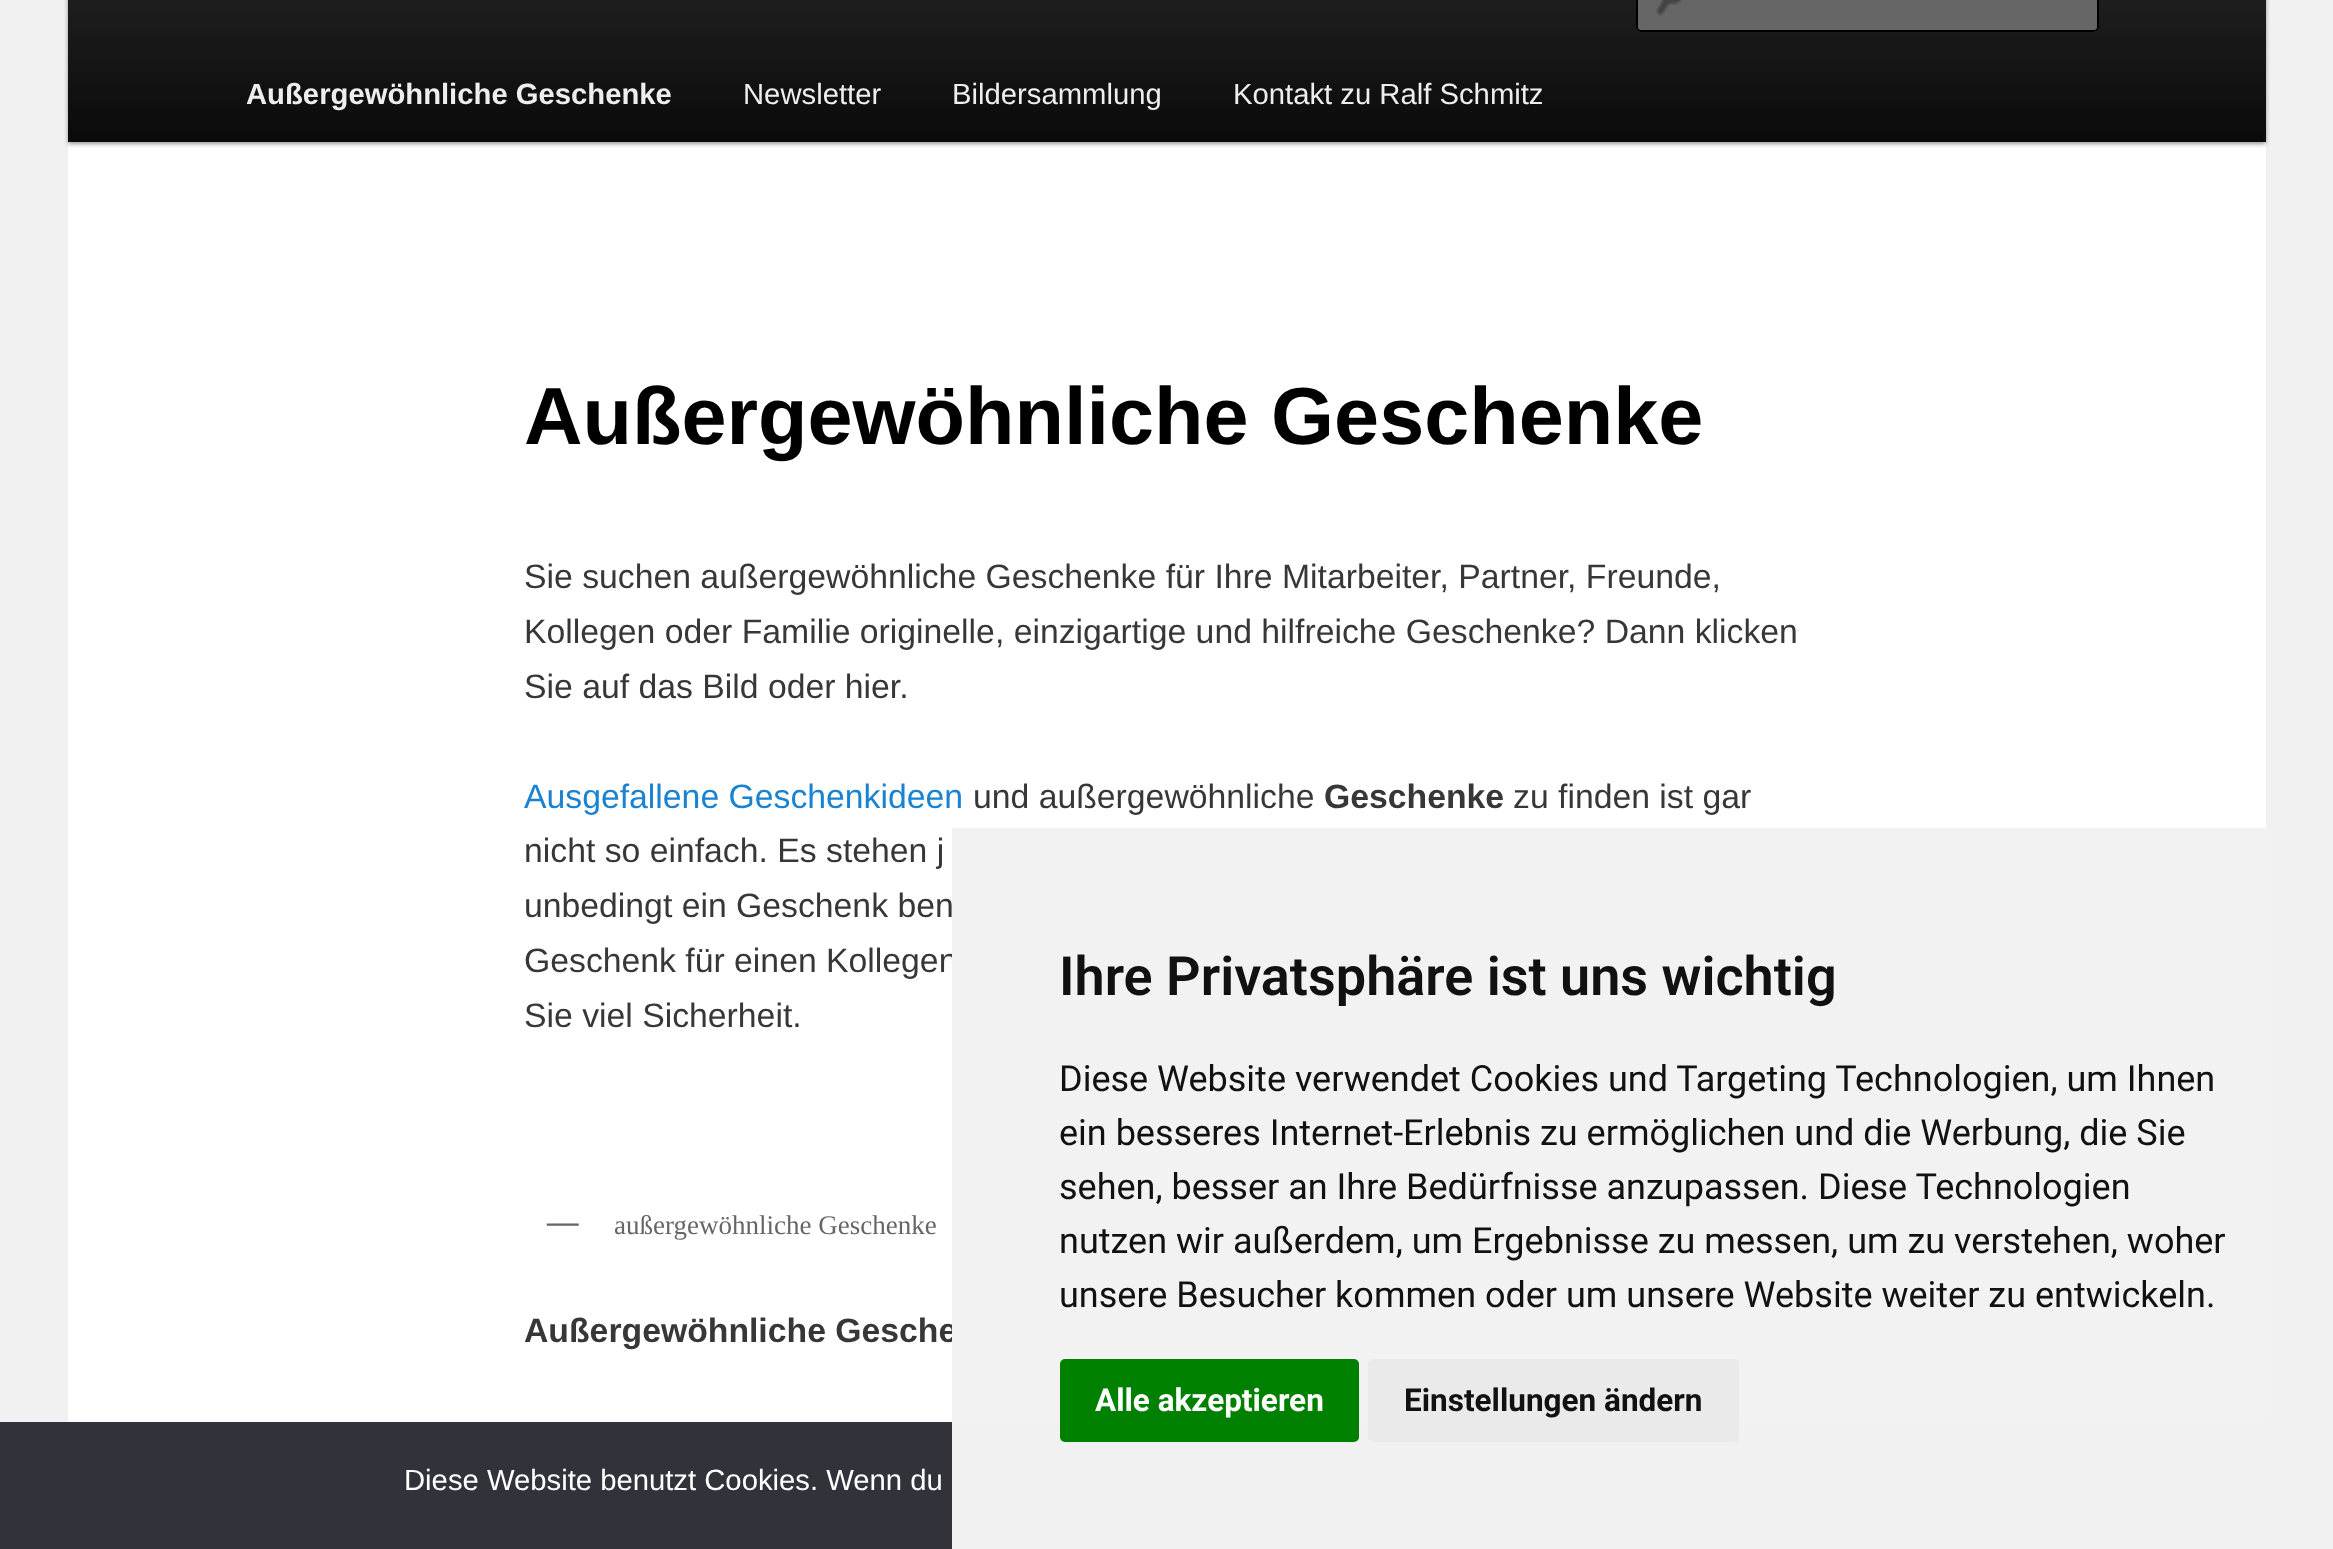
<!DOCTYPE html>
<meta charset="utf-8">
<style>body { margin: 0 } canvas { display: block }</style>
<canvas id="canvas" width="2333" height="1549"></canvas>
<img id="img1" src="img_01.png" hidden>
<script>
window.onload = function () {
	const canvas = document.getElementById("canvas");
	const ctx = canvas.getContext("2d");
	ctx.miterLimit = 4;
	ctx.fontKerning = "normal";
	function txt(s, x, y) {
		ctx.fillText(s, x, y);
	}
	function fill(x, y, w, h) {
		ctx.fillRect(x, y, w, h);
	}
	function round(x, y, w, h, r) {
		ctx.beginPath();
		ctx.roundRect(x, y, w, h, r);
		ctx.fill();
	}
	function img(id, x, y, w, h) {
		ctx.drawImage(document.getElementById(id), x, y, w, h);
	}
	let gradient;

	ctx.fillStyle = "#F1F1F1";
	fill(0, 0, 2333, 1549);
	ctx.fillStyle = "#FFFFFF";
	fill(68, 142, 2198, 1280);
	ctx.fillStyle = "rgba(0, 0, 0, 0.4)";
	ctx.filter = "blur(2px)";
	ctx.beginPath();
	ctx.rect(68, -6, 2198, 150);
	ctx.fill();
	ctx.filter = "none";
	gradient = ctx.createLinearGradient(1167, -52, 1167, 142);
	gradient.addColorStop(0, "#252525");
	gradient.addColorStop(1, "#0A0A0A");
	ctx.fillStyle = gradient;
	fill(68, 0, 2198, 142);
	ctx.fillStyle = "#666666";
	round(1636, -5, 463, 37, 5);
	img("img1", 1656, 0, 26, 16);
	ctx.beginPath();
	ctx.roundRect(1637, -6, 461, 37, 4);
	ctx.strokeStyle = "#000000";
	ctx.lineWidth = 2;
	ctx.stroke();
	ctx.fillStyle = "#32323A";
	fill(0, 1422, 952, 127);
	ctx.font = "bold 29.25px Liberation Sans";
	ctx.fillStyle = "#EEEEEE";
	txt("Außergewöhnliche Geschenke", 246, 104);
	ctx.font = "29.25px Liberation Sans";
	txt("Newsletter", 743, 104);
	txt("Bildersammlung", 952, 104);
	txt("Kontakt zu Ralf Schmitz", 1233, 104);
	ctx.font = "bold 81px Liberation Sans";
	ctx.fillStyle = "#000000";
	txt("Außergewöhnliche Geschenke", 524, 444);
	ctx.font = "33.75px Liberation Sans";
	ctx.fillStyle = "#373737";
	txt("Sie suchen außergewöhnliche Geschenke für Ihre Mitarbeiter, Partner, Freunde,", 524, 588);
	txt("Kollegen oder Familie originelle, einzigartige und hilfreiche Geschenke? Dann klicken", 524, 643);
	txt("Sie auf das Bild oder hier.", 524, 698);
	ctx.fillStyle = "#1982D1";
	txt("Ausgefallene Geschenkideen", 524, 808);
	ctx.fillStyle = "#373737";
	txt("und außergewöhnliche", 973, 808);
	ctx.font = "bold 33.75px Liberation Sans";
	txt("Geschenke", 1324, 808);
	ctx.font = "33.75px Liberation Sans";
	txt("zu finden ist gar", 1513, 808);
	txt("nicht so einfach. Es stehen j", 524, 862);
	txt("unbedingt ein Geschenk ben", 524, 917);
	txt("Geschenk für einen Kollegen", 524, 972);
	txt("Sie viel Sicherheit.", 524, 1027);
	ctx.font = "bold 31.5px Liberation Serif";
	ctx.fillStyle = "#666666";
	txt("—", 547, 1232);
	ctx.font = "27px Liberation Serif";
	txt("außergewöhnliche Geschenke", 614, 1234);
	ctx.font = "bold 33.75px Liberation Sans";
	ctx.fillStyle = "#373737";
	txt("Außergewöhnliche Gesche", 524, 1342);
	ctx.fillStyle = "#F2F2F2";
	fill(952, 828, 1314, 594);
	ctx.font = "600 54px Roboto";
	ctx.fillStyle = "#111111";
	txt("Ihre Privatsphäre ist uns wichtig", 1059, 995);
	ctx.font = "36px Roboto";
	txt("Diese Website verwendet Cookies und Targeting Technologien, um Ihnen", 1059, 1091);
	txt("ein besseres Internet-Erlebnis zu ermöglichen und die Werbung, die Sie", 1059, 1145);
	txt("sehen, besser an Ihre Bedürfnisse anzupassen. Diese Technologien", 1059, 1199);
	txt("nutzen wir außerdem, um Ergebnisse zu messen, um zu verstehen, woher", 1059, 1253);
	txt("unsere Besucher kommen oder um unsere Website weiter zu entwickeln.", 1059, 1307);
	ctx.fillStyle = "#008000";
	round(1060, 1359, 299, 83, 5);
	ctx.font = "bold 31.5px Roboto";
	ctx.fillStyle = "#FFFFFF";
	txt("Alle akzeptieren", 1095, 1411);
	ctx.fillStyle = "#EAEAEA";
	round(1368, 1359, 371, 83, 5);
	ctx.fillStyle = "#111111";
	txt("Einstellungen ändern", 1404, 1411);
	ctx.font = "29.25px Liberation Sans";
	ctx.fillStyle = "#FFFFFF";
	txt("Diese Website benutzt Cookies. Wenn du", 404, 1490);
};
</script>
